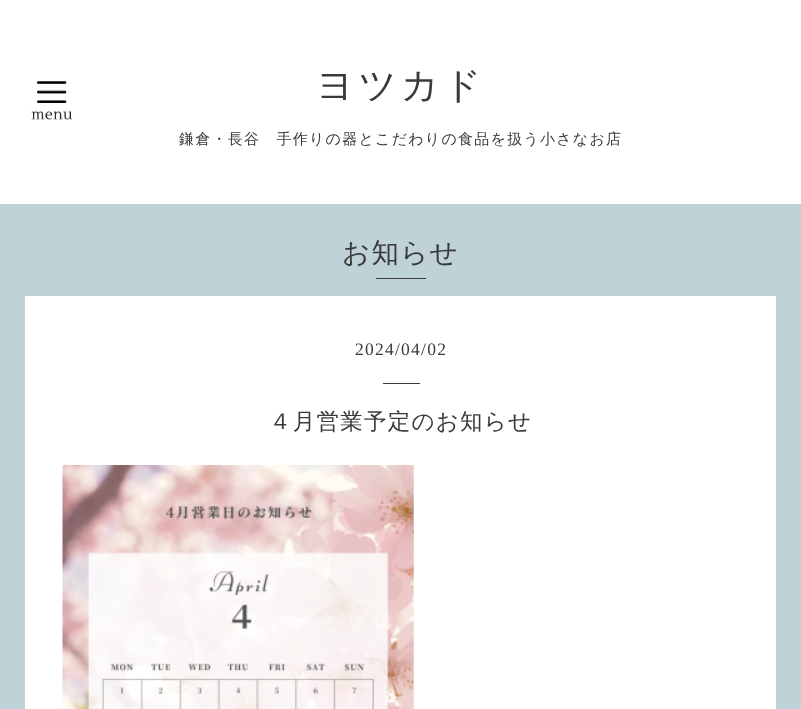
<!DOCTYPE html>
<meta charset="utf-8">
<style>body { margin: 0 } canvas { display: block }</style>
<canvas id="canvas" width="801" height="709"></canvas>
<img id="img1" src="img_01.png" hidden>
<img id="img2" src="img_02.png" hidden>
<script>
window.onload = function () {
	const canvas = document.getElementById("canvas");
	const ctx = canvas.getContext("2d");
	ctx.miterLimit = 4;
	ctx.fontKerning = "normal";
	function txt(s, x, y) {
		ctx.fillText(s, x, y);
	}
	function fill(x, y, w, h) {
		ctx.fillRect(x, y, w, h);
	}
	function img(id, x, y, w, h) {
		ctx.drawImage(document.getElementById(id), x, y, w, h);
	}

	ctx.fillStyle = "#FFFFFF";
	fill(0, 0, 801, 709);
	img("img1", 31, 81, 42, 39);
	ctx.fillStyle = "#BFD2D8";
	fill(0, 204, 801, 505);
	ctx.fillStyle = "#3A3A3A";
	fill(376, 278, 50, 1);
	ctx.fillStyle = "#FFFFFF";
	fill(25, 296, 751, 413);
	ctx.fillStyle = "#3A3A3A";
	fill(383, 383, 37, 1);
	img("img2", 62, 465, 352, 244);
	ctx.letterSpacing = "4px";
	ctx.font = "500 37.5px WenQuanYi Zen Hei";
	txt("ヨツカド", 316, 98);
	ctx.letterSpacing = "1.25px";
	ctx.font = "500 15px WenQuanYi Zen Hei";
	txt("鎌倉・長谷　手作りの器とこだわりの食品を扱う小さなお店", 179, 144);
	ctx.font = "500 27.5px WenQuanYi Zen Hei";
	txt("お知らせ", 342, 262);
	ctx.font = "17.5px Liberation Serif";
	txt("2024/04/02", 355, 355);
	ctx.font = "500 22.5px WenQuanYi Zen Hei";
	txt("４月営業予定のお知らせ", 269, 429);
};
</script>
